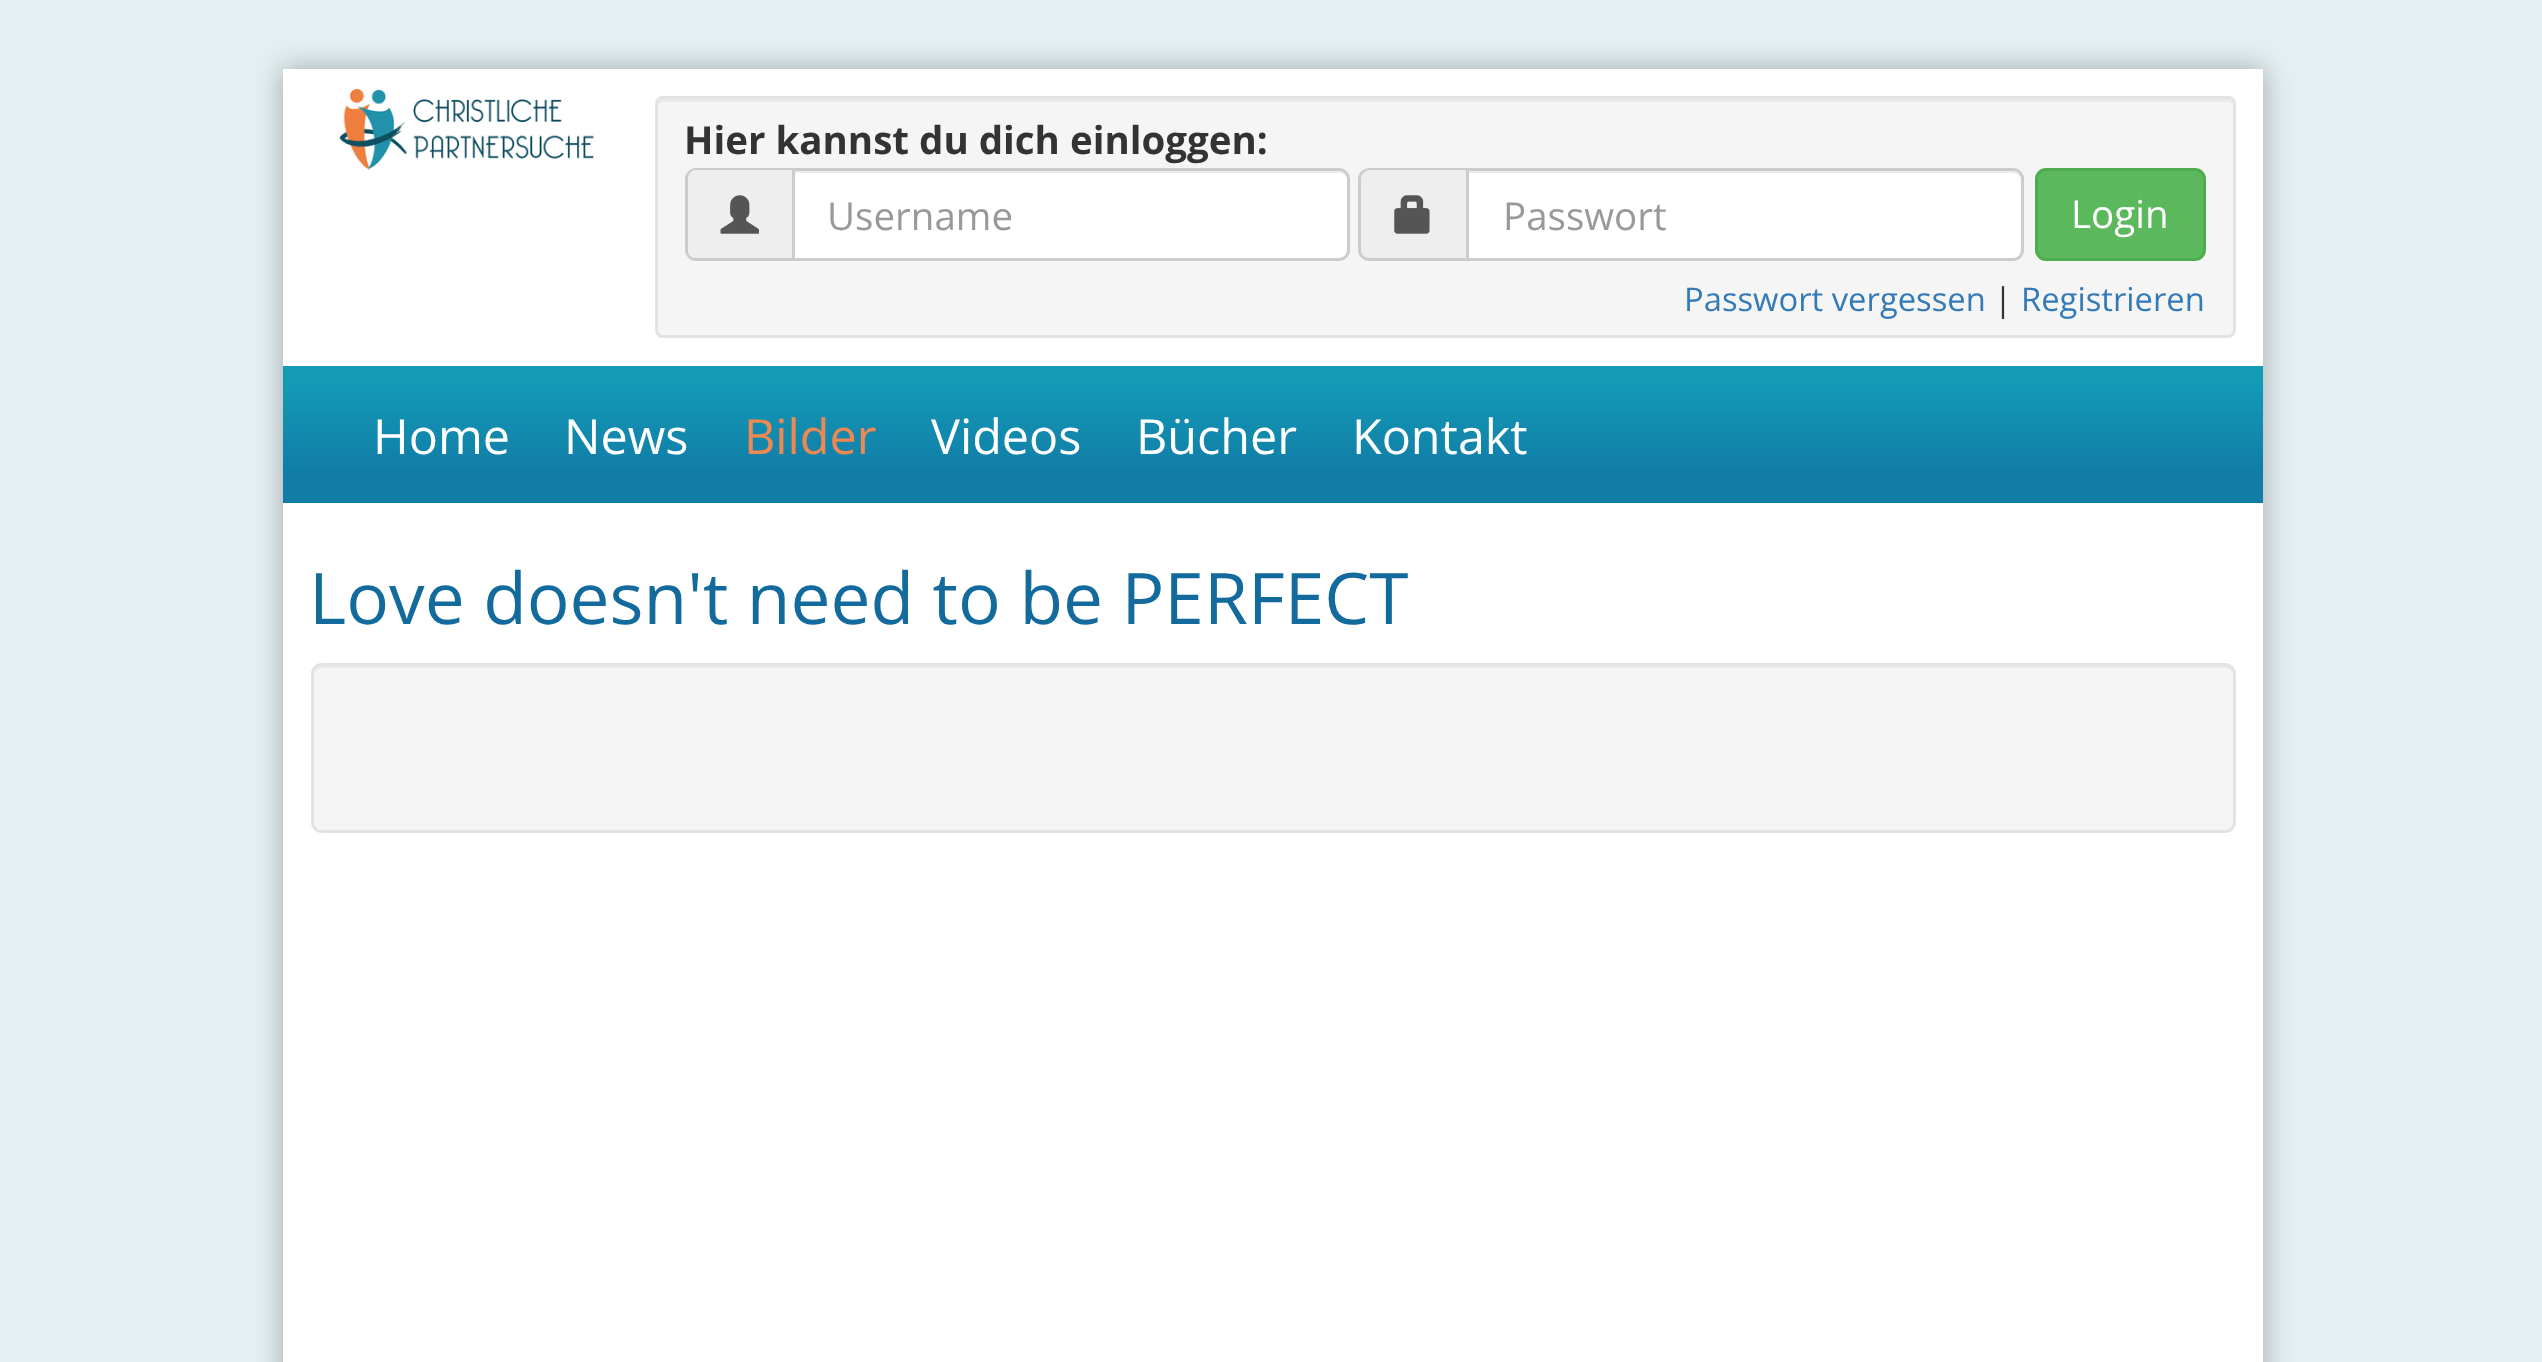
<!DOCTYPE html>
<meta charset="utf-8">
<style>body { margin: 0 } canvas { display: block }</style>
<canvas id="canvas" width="2542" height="1362"></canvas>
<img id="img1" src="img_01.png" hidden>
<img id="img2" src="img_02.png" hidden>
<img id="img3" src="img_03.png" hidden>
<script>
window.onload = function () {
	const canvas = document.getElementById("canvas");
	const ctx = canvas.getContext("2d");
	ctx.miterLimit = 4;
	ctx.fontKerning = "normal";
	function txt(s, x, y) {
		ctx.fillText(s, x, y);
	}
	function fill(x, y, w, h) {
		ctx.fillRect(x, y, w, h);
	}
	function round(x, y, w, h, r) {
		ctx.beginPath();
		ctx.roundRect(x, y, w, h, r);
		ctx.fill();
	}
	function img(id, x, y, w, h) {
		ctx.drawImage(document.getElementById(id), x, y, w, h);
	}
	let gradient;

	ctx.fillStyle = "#E4EFF2";
	fill(0, 0, 2542, 1362);
	ctx.fillStyle = "rgba(0, 0, 0, 0.3)";
	ctx.filter = "blur(14px)";
	ctx.beginPath();
	ctx.rect(283, 69, 1980, 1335);
	ctx.fill();
	ctx.filter = "none";
	ctx.fillStyle = "#FFFFFF";
	fill(283, 69, 1980, 1293);
	img("img1", 339, 88, 255, 82);
	ctx.fillStyle = "#F5F5F5";
	round(655, 96, 1581, 242, 8);
	ctx.fillStyle = "#E9E9E9";
	ctx.beginPath();
	ctx.moveTo(663, 102);
	ctx.lineTo(2228, 102);
	ctx.bezierCurveTo(2231, 102, 2233, 104, 2233, 107);
	ctx.bezierCurveTo(2233, 103, 2232, 99, 2227, 99);
	ctx.lineTo(663, 99);
	ctx.bezierCurveTo(658, 99, 657, 103, 657, 107);
	ctx.bezierCurveTo(657, 104, 660, 102, 663, 102);
	ctx.closePath();
	ctx.fill();
	ctx.beginPath();
	ctx.roundRect(656.5, 97.5, 1578, 239, 6.5);
	ctx.strokeStyle = "#E3E3E3";
	ctx.lineWidth = 3;
	ctx.stroke();
	ctx.fillStyle = "#EEEEEE";
	ctx.beginPath();
	ctx.roundRect(685, 168, 107, 93, [11, 0, 0, 11]);
	ctx.fill();
	ctx.fillStyle = "#CCCCCC";
	ctx.beginPath();
	ctx.moveTo(696, 168);
	ctx.lineTo(792, 168);
	ctx.lineTo(792, 261);
	ctx.lineTo(696, 261);
	ctx.bezierCurveTo(690, 261, 685, 256, 685, 250);
	ctx.lineTo(685, 179);
	ctx.bezierCurveTo(685, 173, 690, 168, 696, 168);
	ctx.closePath();
	ctx.moveTo(696, 170);
	ctx.lineTo(792, 170);
	ctx.lineTo(792, 258);
	ctx.lineTo(696, 258);
	ctx.bezierCurveTo(691, 258, 688, 255, 688, 250);
	ctx.lineTo(688, 179);
	ctx.bezierCurveTo(688, 174, 691, 170, 696, 170);
	ctx.closePath();
	ctx.fill("evenodd");
	img("img2", 720, 195, 39, 39);
	ctx.fillStyle = "#FFFFFF";
	ctx.beginPath();
	ctx.roundRect(792, 168, 558, 93, [0, 11, 11, 0]);
	ctx.fill();
	ctx.fillStyle = "#ECECEC";
	ctx.beginPath();
	ctx.moveTo(795, 173);
	ctx.lineTo(1339, 173);
	ctx.bezierCurveTo(1344, 173, 1348, 177, 1348, 182);
	ctx.bezierCurveTo(1348, 177, 1346, 171, 1340, 171);
	ctx.lineTo(795, 171);
	ctx.closePath();
	ctx.fill();
	ctx.beginPath();
	ctx.roundRect(793.5, 169.5, 555, 90, [0, 9.5, 9.5, 0]);
	ctx.strokeStyle = "#CCCCCC";
	ctx.stroke();
	ctx.fillStyle = "#EEEEEE";
	ctx.beginPath();
	ctx.roundRect(1359, 168, 107, 93, [11, 0, 0, 11]);
	ctx.fill();
	ctx.fillStyle = "#CCCCCC";
	ctx.beginPath();
	ctx.moveTo(1370, 168);
	ctx.lineTo(1466, 168);
	ctx.lineTo(1466, 261);
	ctx.lineTo(1370, 261);
	ctx.bezierCurveTo(1363, 261, 1358, 256, 1358, 250);
	ctx.lineTo(1358, 179);
	ctx.bezierCurveTo(1358, 173, 1363, 168, 1370, 168);
	ctx.closePath();
	ctx.moveTo(1370, 170);
	ctx.lineTo(1466, 170);
	ctx.lineTo(1466, 258);
	ctx.lineTo(1370, 258);
	ctx.bezierCurveTo(1365, 258, 1361, 255, 1361, 250);
	ctx.lineTo(1361, 179);
	ctx.bezierCurveTo(1361, 174, 1365, 170, 1370, 170);
	ctx.closePath();
	ctx.fill("evenodd");
	img("img3", 1394, 195, 36, 39);
	ctx.fillStyle = "#FFFFFF";
	ctx.beginPath();
	ctx.roundRect(1466, 168, 558, 93, [0, 11, 11, 0]);
	ctx.fill();
	ctx.fillStyle = "#ECECEC";
	ctx.beginPath();
	ctx.moveTo(1469, 171);
	ctx.lineTo(1469, 173);
	ctx.lineTo(2013, 173);
	ctx.bezierCurveTo(2018, 173, 2021, 177, 2021, 182);
	ctx.bezierCurveTo(2021, 177, 2019, 171, 2013, 171);
	ctx.closePath();
	ctx.fill();
	ctx.beginPath();
	ctx.roundRect(1467.5, 169.5, 555, 90, [0, 9.5, 9.5, 0]);
	ctx.stroke();
	ctx.fillStyle = "#5CB85C";
	ctx.beginPath();
	ctx.roundRect(2036.5, 169.5, 168, 90, 9.5);
	ctx.fill();
	ctx.strokeStyle = "#4CAE4C";
	ctx.stroke();
	gradient = ctx.createLinearGradient(1273, 366, 1273, 503);
	gradient.addColorStop(0, "#139BB6");
	gradient.addColorStop(0.1, "#139BB6");
	gradient.addColorStop(0.77, "#117DA7");
	gradient.addColorStop(1, "#117DA7");
	ctx.fillStyle = gradient;
	fill(283, 366, 1980, 137);
	ctx.fillStyle = "#F5F5F5";
	round(311, 663, 1925, 170, 11);
	ctx.fillStyle = "#E9E9E9";
	ctx.beginPath();
	ctx.moveTo(322, 668);
	ctx.lineTo(2225, 668);
	ctx.bezierCurveTo(2229, 668, 2233, 672, 2233, 676);
	ctx.bezierCurveTo(2233, 671, 2231, 666, 2225, 666);
	ctx.lineTo(322, 666);
	ctx.bezierCurveTo(316, 666, 314, 671, 314, 676);
	ctx.bezierCurveTo(314, 672, 317, 668, 322, 668);
	ctx.closePath();
	ctx.fill();
	ctx.beginPath();
	ctx.roundRect(312.5, 664.5, 1922, 167, 9.5);
	ctx.strokeStyle = "#E3E3E3";
	ctx.stroke();
	ctx.font = "bold 38.5px Open Sans";
	ctx.fillStyle = "#333333";
	txt("Hier kannst du dich einloggen:", 684, 154);
	ctx.font = "38.5px Open Sans";
	ctx.fillStyle = "#999999";
	txt("Username", 827, 230);
	txt("Passwort", 1503, 230);
	ctx.fillStyle = "#FFFFFF";
	txt("Login", 2071, 228);
	ctx.font = "32.75px Open Sans";
	ctx.fillStyle = "#337AB7";
	txt("Passwort vergessen", 1684, 311);
	ctx.fillStyle = "#333333";
	txt("|", 1994, 311);
	ctx.fillStyle = "#337AB7";
	txt("Registrieren", 2021, 311);
	ctx.font = "48.5px Open Sans";
	ctx.fillStyle = "#FFFFFF";
	txt("Home", 373, 454);
	txt("News", 564, 454);
	ctx.fillStyle = "#EF8851";
	txt("Bilder", 744, 454);
	ctx.fillStyle = "#FFFFFF";
	txt("Videos", 931, 454);
	txt("Bücher", 1136, 454);
	txt("Kontakt", 1352, 454);
	ctx.font = "71.25px Open Sans";
	ctx.fillStyle = "#126A9D";
	txt("Love doesn't need to be PERFECT", 309, 624);
};
</script>
